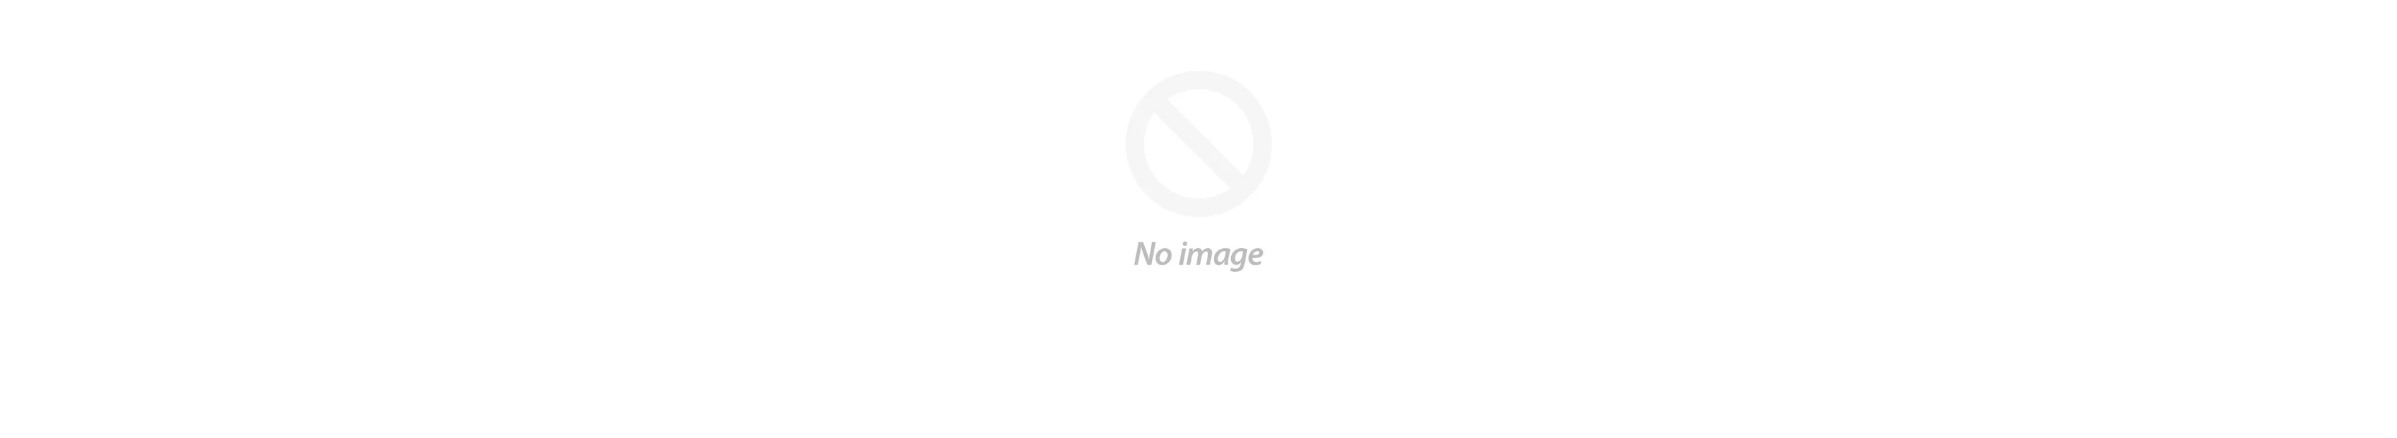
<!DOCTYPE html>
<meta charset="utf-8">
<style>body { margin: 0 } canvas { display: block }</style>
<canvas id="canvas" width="2397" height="438"></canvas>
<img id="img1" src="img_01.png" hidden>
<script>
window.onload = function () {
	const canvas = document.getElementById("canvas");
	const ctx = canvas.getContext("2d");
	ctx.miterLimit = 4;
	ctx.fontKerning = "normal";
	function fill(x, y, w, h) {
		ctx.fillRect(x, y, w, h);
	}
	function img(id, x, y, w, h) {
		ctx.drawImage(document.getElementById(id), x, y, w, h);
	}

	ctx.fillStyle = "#FFFFFF";
	fill(0, 0, 2397, 438);
	img("img1", 1125, 71, 147, 201);
};
</script>
